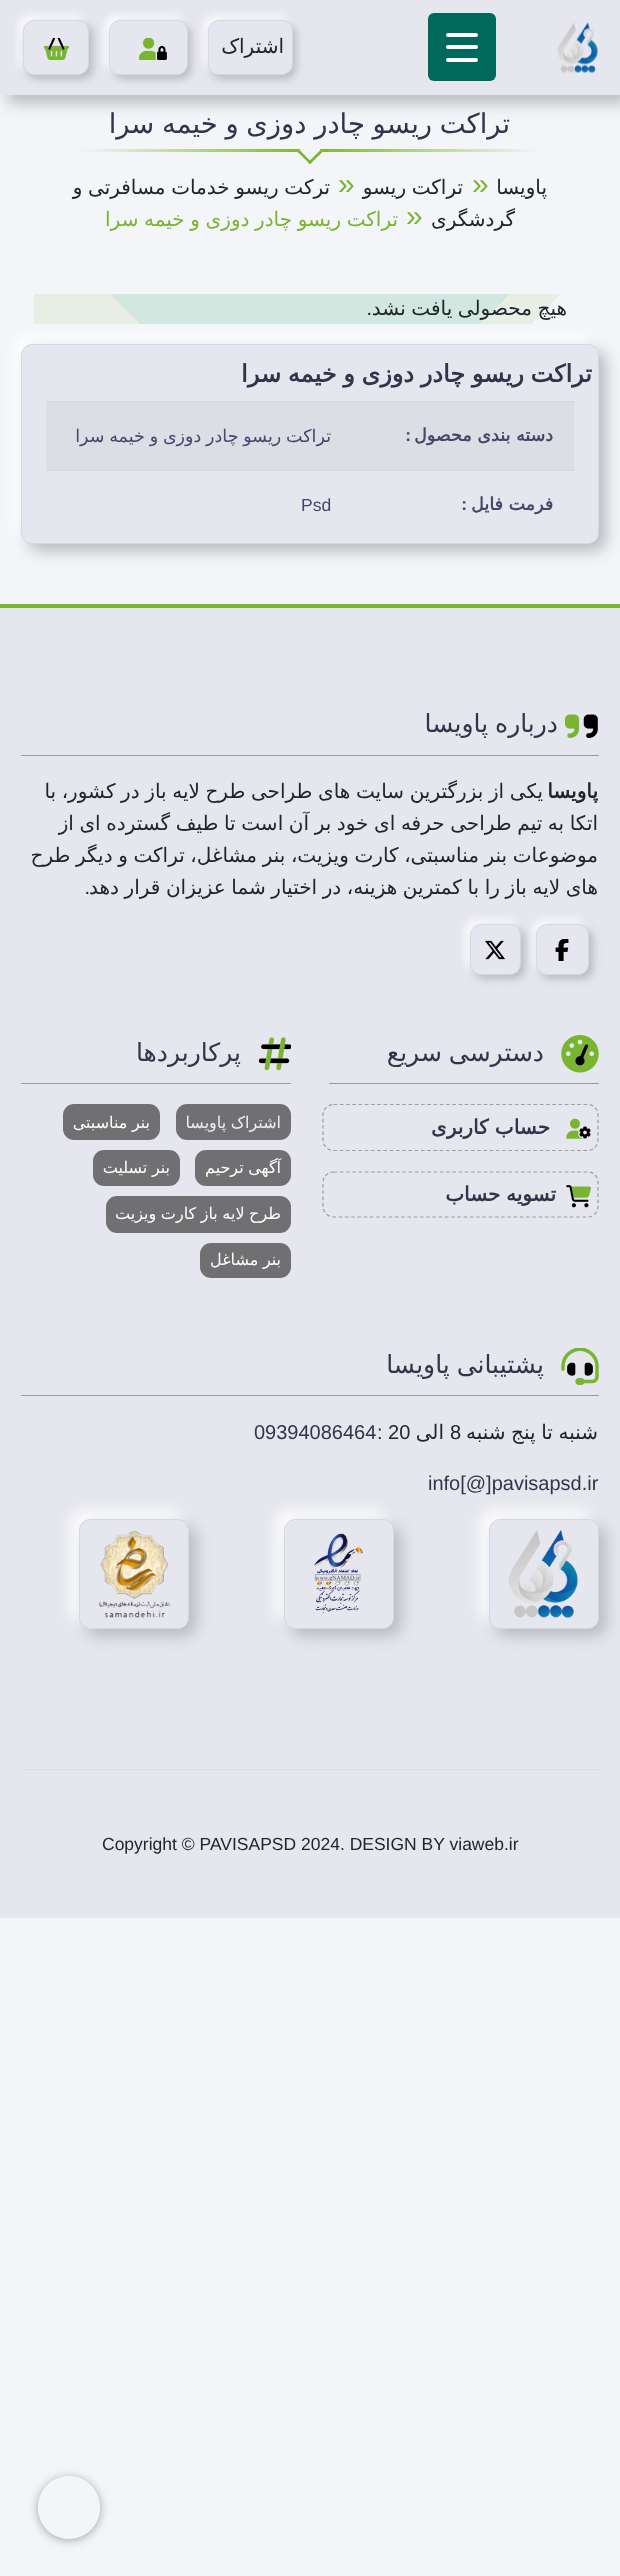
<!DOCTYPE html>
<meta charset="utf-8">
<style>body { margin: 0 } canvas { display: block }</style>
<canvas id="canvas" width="620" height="2576"></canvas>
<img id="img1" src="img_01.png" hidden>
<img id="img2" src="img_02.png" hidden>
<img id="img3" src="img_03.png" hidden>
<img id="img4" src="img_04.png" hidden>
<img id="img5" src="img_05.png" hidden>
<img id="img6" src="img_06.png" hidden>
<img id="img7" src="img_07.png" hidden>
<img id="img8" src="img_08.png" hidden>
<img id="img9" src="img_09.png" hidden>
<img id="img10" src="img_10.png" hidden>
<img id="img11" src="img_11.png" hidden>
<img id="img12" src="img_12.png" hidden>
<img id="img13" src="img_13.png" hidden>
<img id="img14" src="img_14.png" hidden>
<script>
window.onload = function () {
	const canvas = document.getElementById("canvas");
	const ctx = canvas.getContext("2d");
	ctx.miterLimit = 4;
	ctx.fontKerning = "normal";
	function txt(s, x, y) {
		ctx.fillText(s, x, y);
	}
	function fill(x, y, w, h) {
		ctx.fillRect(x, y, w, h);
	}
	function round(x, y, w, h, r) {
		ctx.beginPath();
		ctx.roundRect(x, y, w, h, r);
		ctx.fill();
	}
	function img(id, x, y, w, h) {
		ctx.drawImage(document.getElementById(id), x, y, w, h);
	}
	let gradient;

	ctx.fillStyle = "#F3F5F9";
	fill(0, 0, 620, 2576);
	ctx.fillStyle = "#FFFFFF";
	ctx.filter = "blur(7.5px)";
	ctx.beginPath();
	ctx.rect(-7, -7, 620, 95);
	ctx.fill();
	ctx.filter = "none";
	ctx.fillStyle = "#B8B9BE";
	ctx.filter = "blur(7.5px)";
	ctx.beginPath();
	ctx.rect(8, 8, 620, 95);
	ctx.fill();
	ctx.filter = "none";
	ctx.fillStyle = "#E6E7EE";
	fill(0, 0, 620, 95);
	img("img1", 557, 22, 41, 51);
	ctx.fillStyle = "#00695C";
	round(428, 13, 68, 68, 6);
	ctx.fillStyle = "#FFFFFF";
	round(446, 45, 32, 4, 2);
	round(446, 33, 32, 4, 2);
	round(446, 58, 32, 4, 2);
	ctx.filter = "blur(4px)";
	ctx.beginPath();
	ctx.roundRect(204, 16, 85, 55, 11);
	ctx.fill();
	ctx.filter = "none";
	ctx.fillStyle = "#B8B9BE";
	ctx.filter = "blur(4px)";
	ctx.beginPath();
	ctx.roundRect(211, 24, 85, 55, 11);
	ctx.fill();
	ctx.filter = "none";
	ctx.fillStyle = "#E6E7EE";
	ctx.beginPath();
	ctx.roundRect(208.5, 20.5, 84, 54, 10.5);
	ctx.fill();
	ctx.strokeStyle = "#D1D9E6";
	ctx.stroke();
	ctx.fillStyle = "#FFFFFF";
	ctx.filter = "blur(4px)";
	ctx.beginPath();
	ctx.roundRect(105, 16, 79, 55, 11);
	ctx.fill();
	ctx.filter = "none";
	ctx.fillStyle = "#B8B9BE";
	ctx.filter = "blur(4px)";
	ctx.beginPath();
	ctx.roundRect(113, 24, 78, 55, 11);
	ctx.fill();
	ctx.filter = "none";
	ctx.fillStyle = "#E6E7EE";
	ctx.beginPath();
	ctx.roundRect(109.5, 20.5, 78, 54, 10.5);
	ctx.fill();
	ctx.stroke();
	img("img2", 139, 38, 28, 22);
	ctx.fillStyle = "#FFFFFF";
	ctx.filter = "blur(4px)";
	ctx.beginPath();
	ctx.roundRect(19, 16, 66, 55, 11);
	ctx.fill();
	ctx.filter = "none";
	ctx.fillStyle = "#B8B9BE";
	ctx.filter = "blur(4px)";
	ctx.beginPath();
	ctx.roundRect(26, 24, 67, 55, 11);
	ctx.fill();
	ctx.filter = "none";
	ctx.fillStyle = "#E6E7EE";
	ctx.beginPath();
	ctx.roundRect(23.5, 20.5, 65, 54, 10.5);
	ctx.fill();
	ctx.stroke();
	img("img3", 44, 38, 25, 22);
	gradient = ctx.createLinearGradient(79, 150, 541, 150);
	gradient.addColorStop(0, "#F3F5F9");
	gradient.addColorStop(0.5, "#79B530");
	gradient.addColorStop(1, "#F3F5F9");
	ctx.fillStyle = gradient;
	fill(79, 149, 462, 3);
	ctx.fillStyle = "#FFFFFF";
	ctx.filter = "blur(7.5px)";
	ctx.beginPath();
	ctx.roundRect(14, 336, 577, 200, 11);
	ctx.fill();
	ctx.filter = "none";
	ctx.save();
	ctx.beginPath();
	ctx.rect(34, 294, 552, 30);
	ctx.clip();
	ctx.fillStyle = "#E7EFE5";
	ctx.beginPath();
	ctx.moveTo(-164, 269);
	ctx.lineTo(586, 269);
	ctx.lineTo(211, 644);
	ctx.closePath();
	ctx.fill();
	ctx.fillStyle = "#D2E7E0";
	ctx.beginPath();
	ctx.moveTo(60, 244);
	ctx.lineTo(560, 244);
	ctx.lineTo(310, 494);
	ctx.closePath();
	ctx.fill();
	ctx.restore();
	ctx.fillStyle = "#B8B9BE";
	ctx.filter = "blur(7.5px)";
	ctx.beginPath();
	ctx.roundRect(29, 351, 577, 200, 11);
	ctx.fill();
	ctx.filter = "none";
	ctx.fillStyle = "#E6E7EE";
	ctx.beginPath();
	ctx.roundRect(21.5, 344.5, 577, 199, 10.5);
	ctx.fill();
	ctx.stroke();
	ctx.fillStyle = "#DCDDE5";
	fill(46, 402, 528, 68);
	ctx.fillStyle = "#D1D9E6";
	fill(46, 401, 528, 1);
	fill(46, 470, 528, 1);
	ctx.fillStyle = "#E6E7EE";
	fill(0, 608, 620, 1310);
	ctx.fillStyle = "#79B530";
	fill(0, 604, 620, 4);
	ctx.fillStyle = "#9E9E9E";
	fill(21, 755, 578, 1);
	img("img4", 565, 714, 33, 24);
	ctx.fillStyle = "#FFFFFF";
	ctx.filter = "blur(4px)";
	ctx.beginPath();
	ctx.roundRect(533, 920, 52, 51, 11);
	ctx.fill();
	ctx.filter = "none";
	ctx.fillStyle = "#B8B9BE";
	ctx.filter = "blur(4px)";
	ctx.beginPath();
	ctx.roundRect(540, 928, 53, 51, 11);
	ctx.fill();
	ctx.filter = "none";
	ctx.fillStyle = "#E6E7EE";
	ctx.beginPath();
	ctx.roundRect(536.5, 924.5, 52, 50, 10.5);
	ctx.fill();
	ctx.stroke();
	img("img5", 555, 939, 14, 22);
	ctx.fillStyle = "#FFFFFF";
	ctx.filter = "blur(4px)";
	ctx.beginPath();
	ctx.roundRect(466, 920, 52, 51, 11);
	ctx.fill();
	ctx.filter = "none";
	ctx.fillStyle = "#B8B9BE";
	ctx.filter = "blur(4px)";
	ctx.beginPath();
	ctx.roundRect(474, 928, 51, 51, 11);
	ctx.fill();
	ctx.filter = "none";
	ctx.fillStyle = "#E6E7EE";
	ctx.beginPath();
	ctx.roundRect(470.5, 924.5, 50, 50, 10.5);
	ctx.fill();
	ctx.stroke();
	img("img6", 485, 940, 20, 20);
	ctx.fillStyle = "#9E9E9E";
	fill(329, 1083, 270, 1);
	img("img7", 561, 1035, 38, 38);
	ctx.beginPath();
	ctx.moveTo(333.5, 1104.5);
	ctx.lineTo(588, 1104.5);
	ctx.bezierCurveTo(593.5, 1104.5, 598, 1109, 598, 1115);
	ctx.lineTo(598, 1140);
	ctx.bezierCurveTo(598, 1146, 593.5, 1150.5, 588, 1150.5);
	ctx.lineTo(333.5, 1150.5);
	ctx.bezierCurveTo(328, 1150.5, 323, 1146, 323, 1140);
	ctx.lineTo(323, 1115);
	ctx.bezierCurveTo(323, 1109, 328, 1104.5, 333.5, 1104.5);
	ctx.closePath();
	ctx.strokeStyle = "#9E9E9E";
	ctx.lineWidth = 1.2;
	ctx.setLineDash([3.75, 2.5]);
	ctx.stroke();
	img("img8", 566, 1118, 25, 21);
	ctx.beginPath();
	ctx.moveTo(333.5, 1172);
	ctx.lineTo(588, 1172);
	ctx.bezierCurveTo(593.5, 1172, 598, 1176.5, 598, 1182);
	ctx.lineTo(598, 1206.5);
	ctx.bezierCurveTo(598, 1212, 593.5, 1217, 588, 1217);
	ctx.lineTo(333.5, 1217);
	ctx.bezierCurveTo(328, 1217, 323, 1212, 323, 1206.5);
	ctx.lineTo(323, 1182);
	ctx.bezierCurveTo(323, 1176.5, 328, 1172, 333.5, 1172);
	ctx.closePath();
	ctx.stroke();
	img("img9", 566, 1185, 25, 23);
	fill(21, 1083, 270, 1);
	img("img10", 259, 1037, 32, 34);
	ctx.fillStyle = "#707073";
	round(176, 1104, 115, 36, 11);
	round(63, 1104, 97, 36, 11);
	round(195, 1150, 96, 36, 11);
	round(93, 1150, 87, 36, 11);
	round(106, 1196, 185, 37, 11);
	round(200, 1243, 91, 35, 11);
	ctx.fillStyle = "#9E9E9E";
	fill(21, 1395, 578, 1);
	img("img11", 561, 1348, 38, 37);
	ctx.fillStyle = "#FFFFFF";
	ctx.filter = "blur(7.5px)";
	ctx.beginPath();
	ctx.roundRect(481, 1511, 110, 110, 11);
	ctx.fill();
	ctx.filter = "none";
	ctx.fillStyle = "#B8B9BE";
	ctx.filter = "blur(7.5px)";
	ctx.beginPath();
	ctx.roundRect(496, 1526, 110, 110, 11);
	ctx.fill();
	ctx.filter = "none";
	ctx.fillStyle = "#E6E7EE";
	ctx.beginPath();
	ctx.roundRect(489.5, 1519.5, 109, 109, 10.5);
	ctx.fill();
	ctx.strokeStyle = "#D1D9E6";
	ctx.lineWidth = 1;
	ctx.setLineDash([]);
	ctx.stroke();
	img("img12", 508, 1530, 70, 88);
	ctx.fillStyle = "#FFFFFF";
	ctx.filter = "blur(7.5px)";
	ctx.beginPath();
	ctx.roundRect(276, 1511, 110, 110, 11);
	ctx.fill();
	ctx.filter = "none";
	ctx.fillStyle = "#B8B9BE";
	ctx.filter = "blur(7.5px)";
	ctx.beginPath();
	ctx.roundRect(291, 1526, 110, 110, 11);
	ctx.fill();
	ctx.filter = "none";
	ctx.fillStyle = "#E6E7EE";
	ctx.beginPath();
	ctx.roundRect(284.5, 1519.5, 109, 109, 10.5);
	ctx.fill();
	ctx.stroke();
	img("img13", 314, 1533, 49, 80);
	ctx.fillStyle = "#FFFFFF";
	ctx.filter = "blur(7.5px)";
	ctx.beginPath();
	ctx.roundRect(71, 1511, 110, 110, 11);
	ctx.fill();
	ctx.filter = "none";
	ctx.fillStyle = "#B8B9BE";
	ctx.filter = "blur(7.5px)";
	ctx.beginPath();
	ctx.roundRect(86, 1526, 110, 110, 11);
	ctx.fill();
	ctx.filter = "none";
	ctx.fillStyle = "#E6E7EE";
	ctx.beginPath();
	ctx.roundRect(79.5, 1519.5, 109, 109, 10.5);
	ctx.fill();
	ctx.stroke();
	img("img14", 98, 1530, 72, 88);
	ctx.fillStyle = "#DCDDE5";
	fill(21, 1769, 578, 1);
	ctx.save();
	ctx.beginPath();
	ctx.moveTo(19, 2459);
	ctx.lineTo(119, 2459);
	ctx.lineTo(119, 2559);
	ctx.lineTo(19, 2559);
	ctx.closePath();
	ctx.moveTo(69, 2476);
	ctx.bezierCurveTo(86, 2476, 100, 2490, 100, 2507);
	ctx.lineTo(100, 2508);
	ctx.bezierCurveTo(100, 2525, 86, 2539, 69, 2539);
	ctx.bezierCurveTo(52, 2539, 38, 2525, 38, 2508);
	ctx.lineTo(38, 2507);
	ctx.bezierCurveTo(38, 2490, 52, 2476, 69, 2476);
	ctx.closePath();
	ctx.clip("evenodd");
	ctx.fillStyle = "rgba(0, 0, 0, 0.15)";
	ctx.filter = "blur(6px)";
	ctx.beginPath();
	ctx.roundRect(38, 2478, 62, 62, 31);
	ctx.fill();
	ctx.filter = "none";
	ctx.restore();
	ctx.save();
	ctx.beginPath();
	ctx.moveTo(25, 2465);
	ctx.lineTo(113, 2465);
	ctx.lineTo(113, 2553);
	ctx.lineTo(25, 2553);
	ctx.closePath();
	ctx.moveTo(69, 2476);
	ctx.bezierCurveTo(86, 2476, 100, 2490, 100, 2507);
	ctx.lineTo(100, 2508);
	ctx.bezierCurveTo(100, 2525, 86, 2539, 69, 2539);
	ctx.bezierCurveTo(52, 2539, 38, 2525, 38, 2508);
	ctx.lineTo(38, 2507);
	ctx.bezierCurveTo(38, 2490, 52, 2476, 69, 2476);
	ctx.closePath();
	ctx.clip("evenodd");
	ctx.fillStyle = "rgba(0, 0, 0, 0.2)";
	ctx.filter = "blur(4px)";
	ctx.beginPath();
	ctx.roundRect(38, 2478, 62, 62, 31);
	ctx.fill();
	ctx.filter = "none";
	ctx.restore();
	ctx.letterSpacing = "0.5px";
	ctx.direction = "rtl";
	ctx.font = "20px DejaVu Sans";
	ctx.fillStyle = "#212529";
	txt("اشتراک", 284, 53);
	ctx.letterSpacing = "0px";
	ctx.wordSpacing = "-1px";
	ctx.font = "27.4px DejaVu Sans";
	ctx.fillStyle = "#31344B";
	txt("تراکت ریسو چادر دوزی و خیمه سرا", 510, 133);
	ctx.fillStyle = "#F3F5F9";
	ctx.beginPath();
	ctx.moveTo(310, 139.5);
	ctx.lineTo(322.5, 152);
	ctx.lineTo(310, 164);
	ctx.lineTo(297.5, 152);
	ctx.closePath();
	ctx.fill();
	ctx.fillStyle = "#79B530";
	ctx.beginPath();
	ctx.moveTo(320.5, 150);
	ctx.lineTo(322.5, 152);
	ctx.lineTo(310, 164);
	ctx.lineTo(308, 162.5);
	ctx.closePath();
	ctx.fill();
	ctx.beginPath();
	ctx.moveTo(299.5, 150);
	ctx.lineTo(312, 162.5);
	ctx.lineTo(310, 164);
	ctx.lineTo(297.5, 152);
	ctx.closePath();
	ctx.fill();
	ctx.wordSpacing = "0px";
	ctx.font = "20px DejaVu Sans";
	ctx.fillStyle = "#212529";
	txt("پاویسا", 547, 194);
	ctx.direction = "ltr";
	ctx.font = "30px Liberation Sans";
	ctx.fillStyle = "#79B530";
	txt("»", 472, 194);
	ctx.wordSpacing = "-0.75px";
	ctx.direction = "rtl";
	ctx.font = "20px DejaVu Sans";
	ctx.fillStyle = "#212529";
	txt("تراکت ریسو", 463, 194);
	ctx.wordSpacing = "0px";
	ctx.direction = "ltr";
	ctx.font = "30px Liberation Sans";
	ctx.fillStyle = "#79B530";
	txt("»", 338, 194);
	ctx.wordSpacing = "-0.75px";
	ctx.direction = "rtl";
	ctx.font = "20px DejaVu Sans";
	ctx.fillStyle = "#212529";
	txt("ترکت ریسو خدمات مسافرتی و", 330, 194);
	ctx.wordSpacing = "0px";
	txt("گردشگری", 515, 226);
	ctx.direction = "ltr";
	ctx.font = "30px Liberation Sans";
	ctx.fillStyle = "#79B530";
	txt("»", 406, 226);
	ctx.wordSpacing = "-0.75px";
	ctx.direction = "rtl";
	ctx.font = "20px DejaVu Sans";
	txt("تراکت ریسو چادر دوزی و خیمه سرا", 398, 226);
	ctx.fillStyle = "#212529";
	txt("هیچ محصولی یافت نشد", 567, 315);
	ctx.wordSpacing = "0px";
	ctx.font = "20px Liberation Sans";
	txt(".", 372, 315);
	ctx.save();
	ctx.beginPath();
	ctx.rect(28, 350, 565, 188);
	ctx.clip();
	ctx.wordSpacing = "-1px";
	ctx.font = "bold 24px DejaVu Sans";
	ctx.fillStyle = "#31344B";
	txt("تراکت ریسو چادر دوزی و خیمه سرا", 592, 382);
	ctx.restore();
	ctx.font = "bold 17.5px DejaVu Sans";
	ctx.fillStyle = "#44476A";
	txt("دسته بندی محصول", 553, 441);
	ctx.font = "bold 17.5px Liberation Sans";
	txt(":", 411, 441);
	ctx.wordSpacing = "-0.75px";
	ctx.font = "17.5px DejaVu Sans";
	txt("تراکت ریسو چادر دوزی و خیمه سرا", 331, 442);
	ctx.wordSpacing = "0px";
	ctx.font = "bold 17.5px DejaVu Sans";
	txt("فرمت فایل", 553, 510);
	ctx.font = "bold 17.5px Liberation Sans";
	txt(":", 467, 510);
	ctx.direction = "ltr";
	ctx.font = "17.5px Liberation Sans";
	txt("Psd", 301, 511);
	ctx.wordSpacing = "-1px";
	ctx.direction = "rtl";
	ctx.font = "25px DejaVu Sans";
	ctx.fillStyle = "#31344B";
	txt("درباره پاویسا", 558, 732);
	ctx.wordSpacing = "0px";
	ctx.font = "bold 20px DejaVu Sans";
	ctx.fillStyle = "#212529";
	txt("پاویسا", 598, 798);
	ctx.wordSpacing = "-0.75px";
	ctx.font = "20px DejaVu Sans";
	txt("یکی از بزرگترین سایت های طراحی طرح لایه باز در کشور، با", 543, 798);
	txt("اتکا به تیم طراحی حرفه ای خود بر آن است تا طیف گسترده ای از", 598, 830);
	txt("موضوعات بنر مناسبتی، کارت ویزیت، بنر مشاغل، تراکت و دیگر طرح", 598, 862);
	txt("های لایه باز را با کمترین هزینه، در اختیار شما عزیزان قرار دهد", 598, 894);
	ctx.wordSpacing = "0px";
	ctx.font = "20px Liberation Sans";
	txt(".", 90, 894);
	ctx.wordSpacing = "-1px";
	ctx.font = "25px DejaVu Sans";
	ctx.fillStyle = "#31344B";
	txt("دسترسی سریع", 544, 1061);
	ctx.wordSpacing = "0px";
	ctx.font = "bold 20px DejaVu Sans";
	txt("حساب کاربری", 550, 1134);
	ctx.wordSpacing = "-0.75px";
	txt("تسویه حساب", 556, 1201);
	ctx.wordSpacing = "0px";
	ctx.font = "25px DejaVu Sans";
	txt("پرکاربردها", 241, 1061);
	ctx.wordSpacing = "-0.5px";
	ctx.font = "16px DejaVu Sans";
	ctx.fillStyle = "#ECF0F3";
	txt("اشتراک پاویسا", 281, 1128);
	ctx.fillStyle = "#FFFFFF";
	txt("بنر مناسبتی", 150, 1128);
	txt("آگهی ترحیم", 281, 1173);
	txt("بنر تسلیت", 170, 1173);
	txt("طرح لایه باز کارت ویزیت", 281, 1219);
	txt("بنر مشاغل", 281, 1265);
	ctx.wordSpacing = "-1px";
	ctx.font = "25px DejaVu Sans";
	ctx.fillStyle = "#31344B";
	txt("پشتیبانی پاویسا", 544, 1373);
	ctx.wordSpacing = "-0.75px";
	ctx.font = "20px DejaVu Sans";
	ctx.fillStyle = "#212529";
	txt("شنبه تا پنج شنبه", 598, 1439);
	ctx.wordSpacing = "0px";
	ctx.direction = "ltr";
	ctx.font = "20px Liberation Sans";
	txt("8", 450, 1439);
	ctx.direction = "rtl";
	ctx.font = "20px DejaVu Sans";
	txt("الی", 444, 1439);
	ctx.direction = "ltr";
	ctx.font = "20px Liberation Sans";
	txt(": 20", 377, 1439);
	ctx.fillStyle = "#31344B";
	txt("09394086464", 254, 1439);
	txt("info[@]pavisapsd.ir", 428, 1490);
	ctx.font = "17.5px Liberation Sans";
	ctx.fillStyle = "#212529";
	txt("Copyright © PAVISAPSD 2024. DESIGN BY viaweb.ir", 102, 1850);
};
</script>
